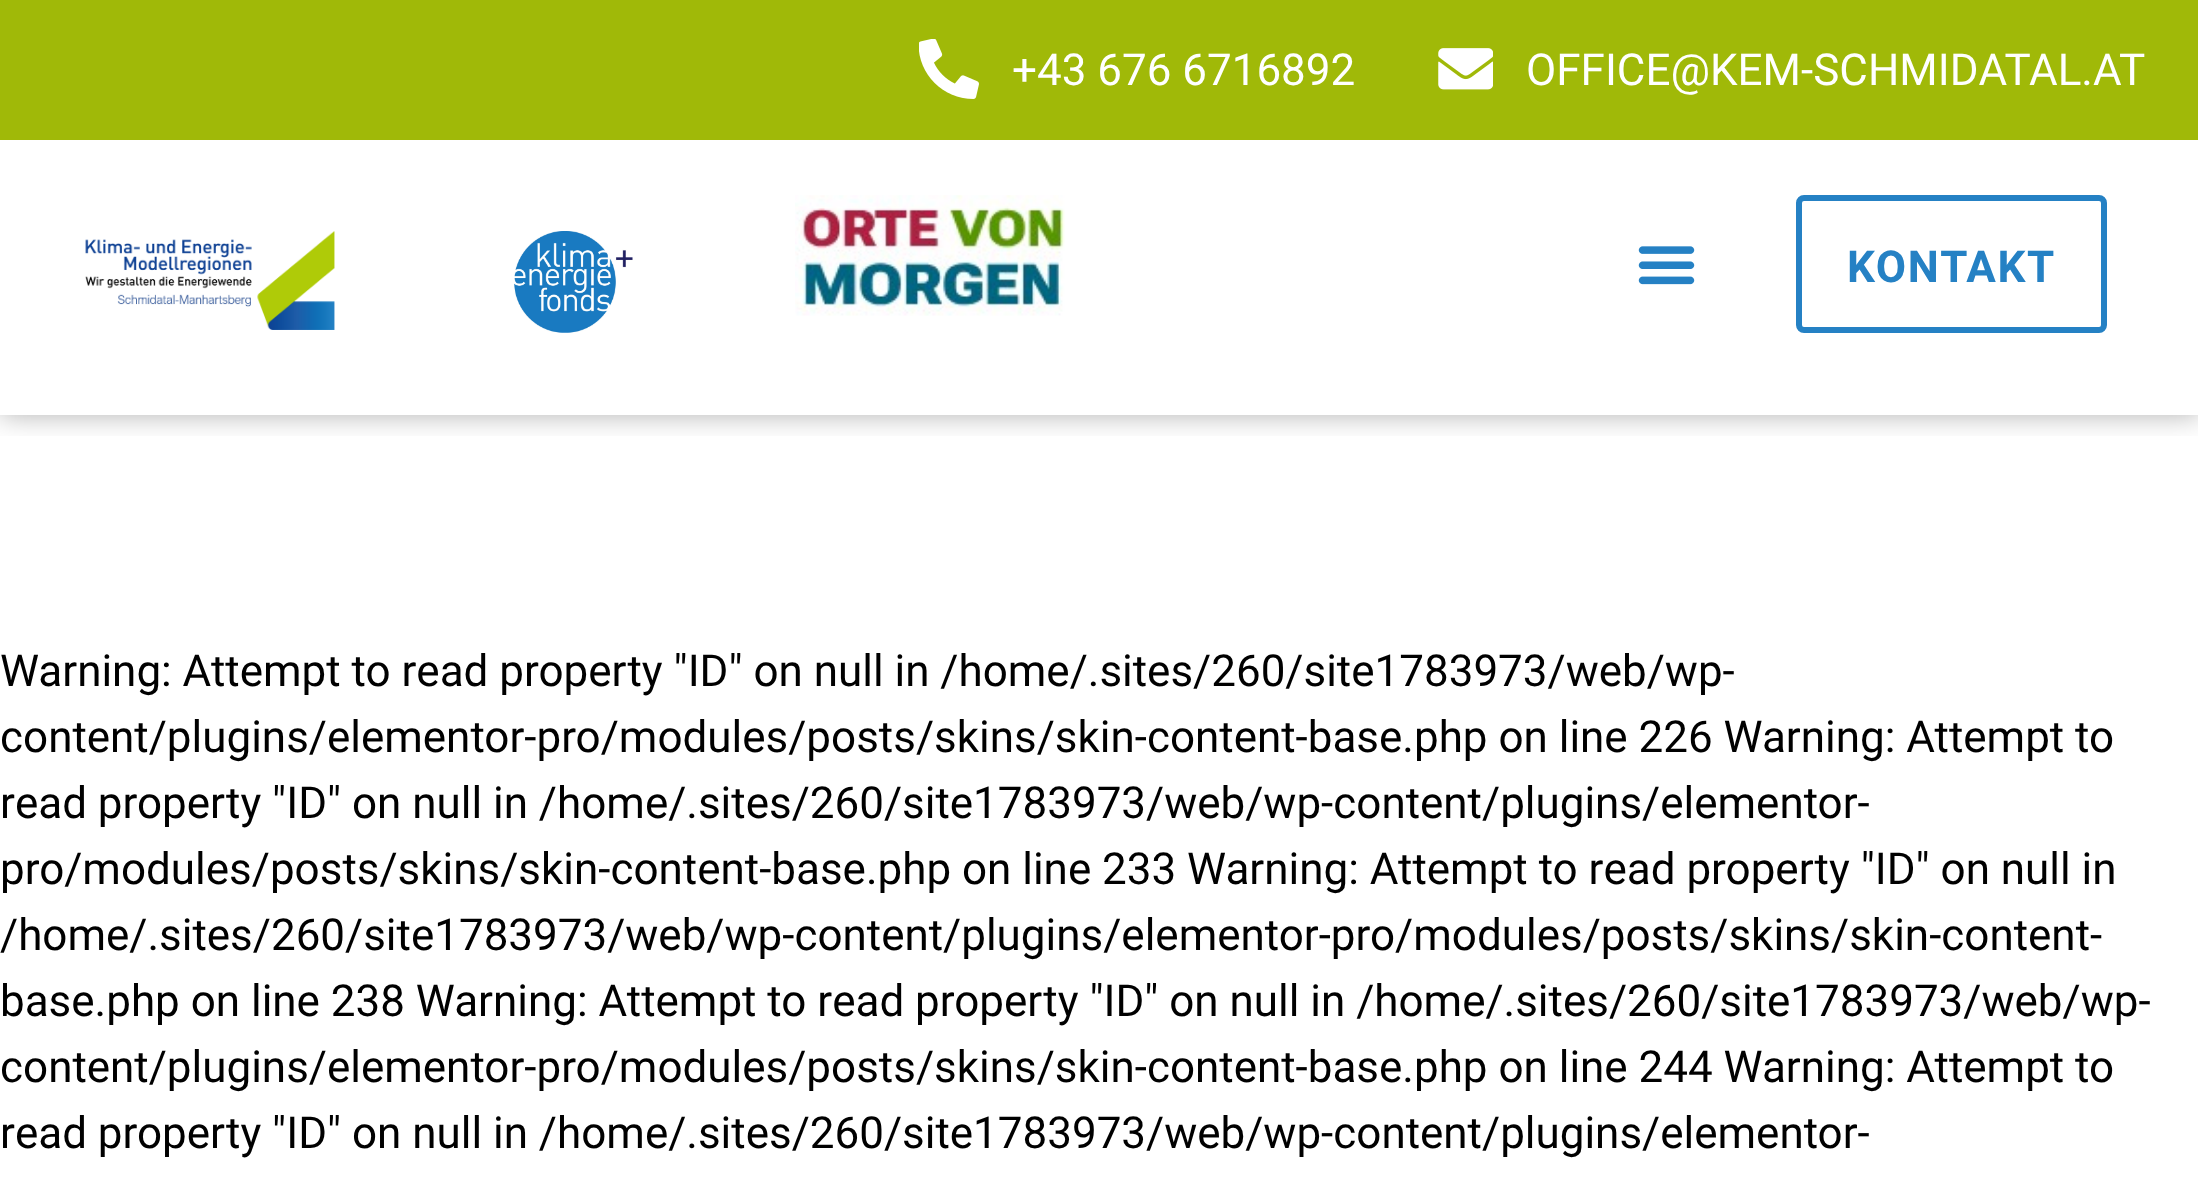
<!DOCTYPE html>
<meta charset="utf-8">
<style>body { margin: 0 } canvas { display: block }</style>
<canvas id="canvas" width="2198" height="1178"></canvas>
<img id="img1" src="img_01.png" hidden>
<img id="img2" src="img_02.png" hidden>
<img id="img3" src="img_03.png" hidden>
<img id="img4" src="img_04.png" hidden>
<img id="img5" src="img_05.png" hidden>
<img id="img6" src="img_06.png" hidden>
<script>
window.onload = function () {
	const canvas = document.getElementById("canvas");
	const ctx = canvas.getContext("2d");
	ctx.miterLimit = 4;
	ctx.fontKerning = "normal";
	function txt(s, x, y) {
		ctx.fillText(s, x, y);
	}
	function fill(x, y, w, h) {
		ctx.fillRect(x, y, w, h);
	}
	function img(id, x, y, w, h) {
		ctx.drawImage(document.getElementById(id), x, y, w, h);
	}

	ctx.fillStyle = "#FFFFFF";
	fill(0, 0, 2198, 1178);
	ctx.save();
	ctx.beginPath();
	ctx.rect(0, 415, 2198, 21);
	ctx.clip();
	ctx.fillStyle = "rgba(0, 0, 0, 0.31)";
	ctx.filter = "blur(14px)";
	ctx.beginPath();
	ctx.rect(0, 0, 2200, 415);
	ctx.fill();
	ctx.filter = "none";
	ctx.restore();
	ctx.fillStyle = "#A0B908";
	fill(0, 0, 2198, 140);
	img("img1", 919, 39, 60, 60);
	img("img2", 1438, 48, 55, 42);
	img("img3", 85, 231, 250, 99);
	img("img4", 514, 231, 119, 102);
	img("img5", 795, 195, 270, 121);
	img("img6", 1638, 246, 57, 39);
	ctx.beginPath();
	ctx.roundRect(1799, 198, 305, 132, 5);
	ctx.strokeStyle = "#2581C4";
	ctx.lineWidth = 6;
	ctx.stroke();
	ctx.font = "44px Roboto";
	ctx.fillStyle = "#FFFFFF";
	txt("+43 676 6716892", 1012, 85);
	txt("OFFICE@KEM-SCHMIDATAL.AT", 1526, 85);
	ctx.letterSpacing = "1.5px";
	ctx.font = "bold 44px Roboto";
	ctx.fillStyle = "#2581C4";
	txt("KONTAKT", 1847, 282);
	ctx.letterSpacing = "0px";
	ctx.font = "44px Roboto";
	ctx.fillStyle = "#000000";
	txt("Warning: Attempt to read property \"ID\" on null in /home/.sites/260/site1783973/web/wp-", 0, 686);
	txt("content/plugins/elementor-pro/modules/posts/skins/skin-content-base.php on line 226 Warning: Attempt to", 0, 752);
	txt("read property \"ID\" on null in /home/.sites/260/site1783973/web/wp-content/plugins/elementor-", 0, 818);
	txt("pro/modules/posts/skins/skin-content-base.php on line 233 Warning: Attempt to read property \"ID\" on null in", 0, 884);
	txt("/home/.sites/260/site1783973/web/wp-content/plugins/elementor-pro/modules/posts/skins/skin-content-", 0, 950);
	txt("base.php on line 238 Warning: Attempt to read property \"ID\" on null in /home/.sites/260/site1783973/web/wp-", 0, 1016);
	txt("content/plugins/elementor-pro/modules/posts/skins/skin-content-base.php on line 244 Warning: Attempt to", 0, 1082);
	txt("read property \"ID\" on null in /home/.sites/260/site1783973/web/wp-content/plugins/elementor-", 0, 1148);
};
</script>
